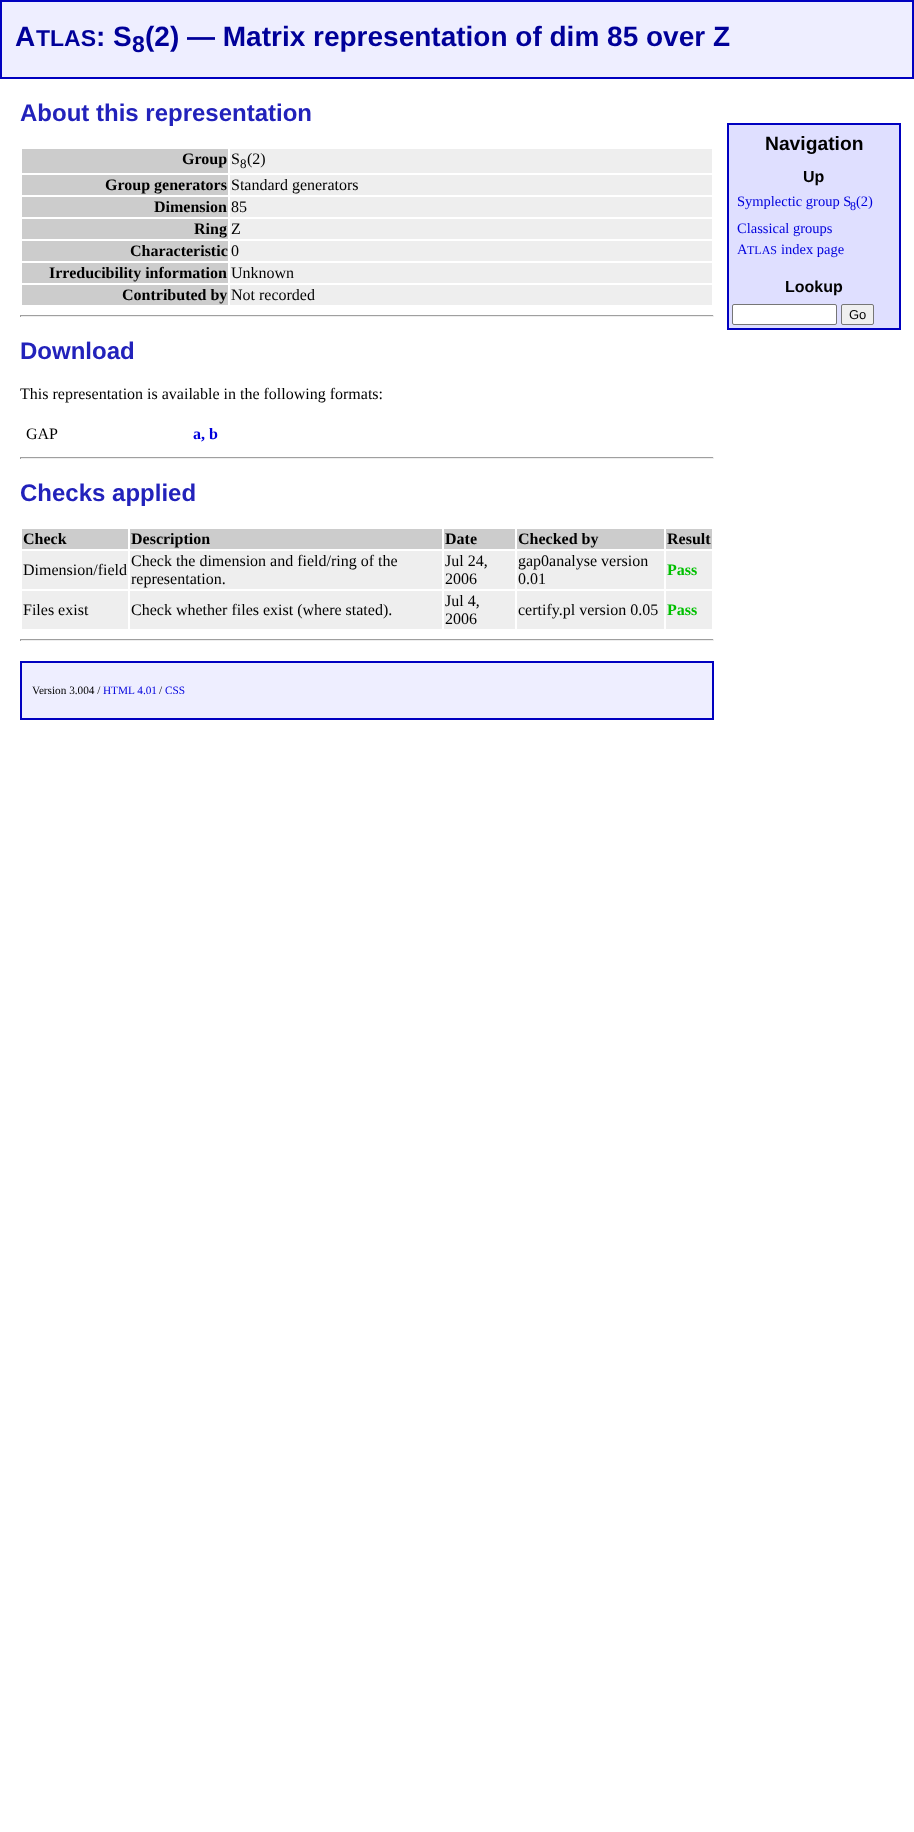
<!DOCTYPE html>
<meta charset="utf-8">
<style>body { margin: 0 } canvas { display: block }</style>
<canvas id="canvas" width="914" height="1832"></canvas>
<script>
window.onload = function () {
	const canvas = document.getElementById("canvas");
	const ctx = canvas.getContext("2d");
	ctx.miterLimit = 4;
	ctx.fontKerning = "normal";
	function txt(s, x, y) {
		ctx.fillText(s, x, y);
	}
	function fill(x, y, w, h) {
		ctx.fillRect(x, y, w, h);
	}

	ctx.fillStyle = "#FFFFFF";
	fill(0, 0, 914, 1832);
	ctx.fillStyle = "#EEEEFF";
	ctx.beginPath();
	ctx.rect(1, 1, 912, 77);
	ctx.fill();
	ctx.strokeStyle = "#0000C0";
	ctx.lineWidth = 2;
	ctx.stroke();
	ctx.fillStyle = "#CCCCCC";
	fill(22, 149, 206, 24);
	ctx.fillStyle = "#EEEEEE";
	fill(230, 149, 482, 24);
	ctx.fillStyle = "#CCCCCC";
	fill(22, 175, 206, 20);
	ctx.fillStyle = "#EEEEEE";
	fill(230, 175, 482, 20);
	ctx.fillStyle = "#CCCCCC";
	fill(22, 197, 206, 20);
	ctx.fillStyle = "#EEEEEE";
	fill(230, 197, 482, 20);
	ctx.fillStyle = "#CCCCCC";
	fill(22, 219, 206, 20);
	ctx.fillStyle = "#EEEEEE";
	fill(230, 219, 482, 20);
	ctx.fillStyle = "#CCCCCC";
	fill(22, 241, 206, 20);
	ctx.fillStyle = "#EEEEEE";
	fill(230, 241, 482, 20);
	ctx.fillStyle = "#CCCCCC";
	fill(22, 263, 206, 20);
	ctx.fillStyle = "#EEEEEE";
	fill(230, 263, 482, 20);
	ctx.fillStyle = "#CCCCCC";
	fill(22, 285, 206, 20);
	ctx.fillStyle = "#EEEEEE";
	fill(230, 285, 482, 20);
	ctx.fillStyle = "#9F9F9F";
	fill(20, 315, 694, 1);
	ctx.fillStyle = "#EEEEEE";
	fill(713, 315, 1, 2);
	fill(20, 316, 694, 1);
	ctx.fillStyle = "#9F9F9F";
	fill(20, 315, 1, 2);
	fill(20, 457, 694, 1);
	ctx.fillStyle = "#EEEEEE";
	fill(713, 457, 1, 2);
	fill(20, 458, 694, 1);
	ctx.fillStyle = "#9F9F9F";
	fill(20, 457, 1, 2);
	ctx.fillStyle = "#CCCCCC";
	fill(22, 529, 106, 20);
	fill(130, 529, 312, 20);
	fill(444, 529, 71, 20);
	fill(517, 529, 147, 20);
	fill(666, 529, 46, 20);
	ctx.fillStyle = "#EEEEEE";
	fill(22, 551, 106, 38);
	fill(130, 551, 312, 38);
	fill(444, 551, 71, 38);
	fill(517, 551, 147, 38);
	fill(666, 551, 46, 38);
	fill(22, 591, 106, 38);
	fill(130, 591, 312, 38);
	fill(444, 591, 71, 38);
	fill(517, 591, 147, 38);
	fill(666, 591, 46, 38);
	ctx.fillStyle = "#9F9F9F";
	fill(20, 639, 694, 1);
	ctx.fillStyle = "#EEEEEE";
	fill(713, 639, 1, 2);
	fill(20, 640, 694, 1);
	ctx.fillStyle = "#9F9F9F";
	fill(20, 639, 1, 2);
	ctx.fillStyle = "#DFDFFF";
	ctx.beginPath();
	ctx.rect(728, 124, 172, 205);
	ctx.fill();
	ctx.stroke();
	ctx.fillStyle = "#FFFFFF";
	ctx.beginPath();
	ctx.roundRect(732.5, 304.5, 104, 20, 1.5);
	ctx.fill();
	ctx.strokeStyle = "#767676";
	ctx.lineWidth = 1;
	ctx.stroke();
	ctx.fillStyle = "#EFEFEF";
	ctx.beginPath();
	ctx.roundRect(841.5, 304.5, 32, 20, 1.5);
	ctx.fill();
	ctx.stroke();
	ctx.fillStyle = "#EEEEFF";
	ctx.beginPath();
	ctx.rect(21, 662, 692, 57);
	ctx.fill();
	ctx.strokeStyle = "#0000C0";
	ctx.lineWidth = 2;
	ctx.stroke();
	ctx.font = "bold 28px Liberation Sans";
	ctx.fillStyle = "#000099";
	txt("A", 15, 46);
	ctx.font = "bold 23px Liberation Sans";
	txt("TLAS", 36, 46);
	ctx.font = "bold 28px Liberation Sans";
	txt(": S", 96, 46);
	ctx.font = "bold 23px Liberation Sans";
	txt("8", 132, 52);
	ctx.font = "bold 28px Liberation Sans";
	txt("(2) — Matrix representation of dim 85 over Z", 145, 46);
	ctx.font = "bold 24px Liberation Sans";
	ctx.fillStyle = "#2222BB";
	txt("About this representation", 20, 121);
	ctx.font = "bold 16px Liberation Serif";
	ctx.fillStyle = "#000000";
	txt("Group", 182, 164);
	ctx.font = "16px Liberation Serif";
	txt("S", 231, 164);
	ctx.font = "13px Liberation Serif";
	txt("8", 240, 168);
	ctx.font = "16px Liberation Serif";
	txt("(2)", 247, 164);
	ctx.font = "bold 16px Liberation Serif";
	txt("Group generators", 105, 190);
	ctx.font = "16px Liberation Serif";
	txt("Standard generators", 231, 190);
	ctx.font = "bold 16px Liberation Serif";
	txt("Dimension", 154, 212);
	ctx.font = "16px Liberation Serif";
	txt("85", 231, 212);
	ctx.font = "bold 16px Liberation Serif";
	txt("Ring", 194, 234);
	ctx.font = "16px Liberation Serif";
	txt("Z", 231, 234);
	ctx.font = "bold 16px Liberation Serif";
	txt("Characteristic", 130, 256);
	ctx.font = "16px Liberation Serif";
	txt("0", 231, 256);
	ctx.font = "bold 16px Liberation Serif";
	txt("Irreducibility information", 49, 278);
	ctx.font = "16px Liberation Serif";
	txt("Unknown", 231, 278);
	ctx.font = "bold 16px Liberation Serif";
	txt("Contributed by", 122, 300);
	ctx.font = "16px Liberation Serif";
	txt("Not recorded", 231, 300);
	ctx.font = "bold 24px Liberation Sans";
	ctx.fillStyle = "#2222BB";
	txt("Download", 20, 359);
	ctx.font = "16px Liberation Serif";
	ctx.fillStyle = "#000000";
	txt("This representation is available in the following formats:", 20, 399);
	txt("GAP", 26, 439);
	ctx.font = "bold 16px Liberation Serif";
	ctx.fillStyle = "#0000DD";
	txt("a, b", 193, 439);
	ctx.font = "bold 24px Liberation Sans";
	ctx.fillStyle = "#2222BB";
	txt("Checks applied", 20, 501);
	ctx.font = "bold 16px Liberation Serif";
	ctx.fillStyle = "#000000";
	txt("Check", 23, 544);
	txt("Description", 131, 544);
	txt("Date", 445, 544);
	txt("Checked by", 518, 544);
	txt("Result", 667, 544);
	ctx.font = "16px Liberation Serif";
	txt("Dimension/field", 23, 575);
	txt("Check the dimension and field/ring of the", 131, 566);
	txt("representation.", 131, 584);
	txt("Jul 24,", 445, 566);
	txt("2006", 445, 584);
	txt("gap0analyse version", 518, 566);
	txt("0.01", 518, 584);
	ctx.font = "bold 16px Liberation Serif";
	ctx.fillStyle = "#00C000";
	txt("Pass", 667, 575);
	ctx.font = "16px Liberation Serif";
	ctx.fillStyle = "#000000";
	txt("Files exist", 23, 615);
	txt("Check whether files exist (where stated).", 131, 615);
	txt("Jul 4,", 445, 606);
	txt("2006", 445, 624);
	txt("certify.pl version 0.05", 518, 615);
	ctx.font = "bold 16px Liberation Serif";
	ctx.fillStyle = "#00C000";
	txt("Pass", 667, 615);
	ctx.font = "bold 19.25px Liberation Sans";
	ctx.fillStyle = "#000000";
	txt("Navigation", 765, 150);
	ctx.font = "bold 16px Liberation Sans";
	txt("Up", 803, 182);
	ctx.font = "14.5px Liberation Serif";
	ctx.fillStyle = "#0000DD";
	txt("Symplectic group S", 737, 206);
	ctx.font = "12px Liberation Serif";
	txt("8", 850, 210);
	ctx.font = "14.5px Liberation Serif";
	txt("(2)", 856, 206);
	txt("Classical groups", 737, 233);
	txt("A", 737, 254);
	ctx.font = "12px Liberation Serif";
	txt("TLAS", 747, 254);
	ctx.font = "14.5px Liberation Serif";
	txt("index page", 781, 254);
	ctx.font = "bold 16px Liberation Sans";
	ctx.fillStyle = "#000000";
	txt("Lookup", 785, 292);
	ctx.font = "13px Liberation Sans";
	txt("Go", 849, 319);
	ctx.font = "11.25px Liberation Serif";
	txt("Version 3.004 /", 32, 694);
	ctx.fillStyle = "#0000DD";
	txt("HTML 4.01", 103, 694);
	ctx.fillStyle = "#000000";
	txt("/", 159, 694);
	ctx.fillStyle = "#0000DD";
	txt("CSS", 165, 694);
};
</script>
